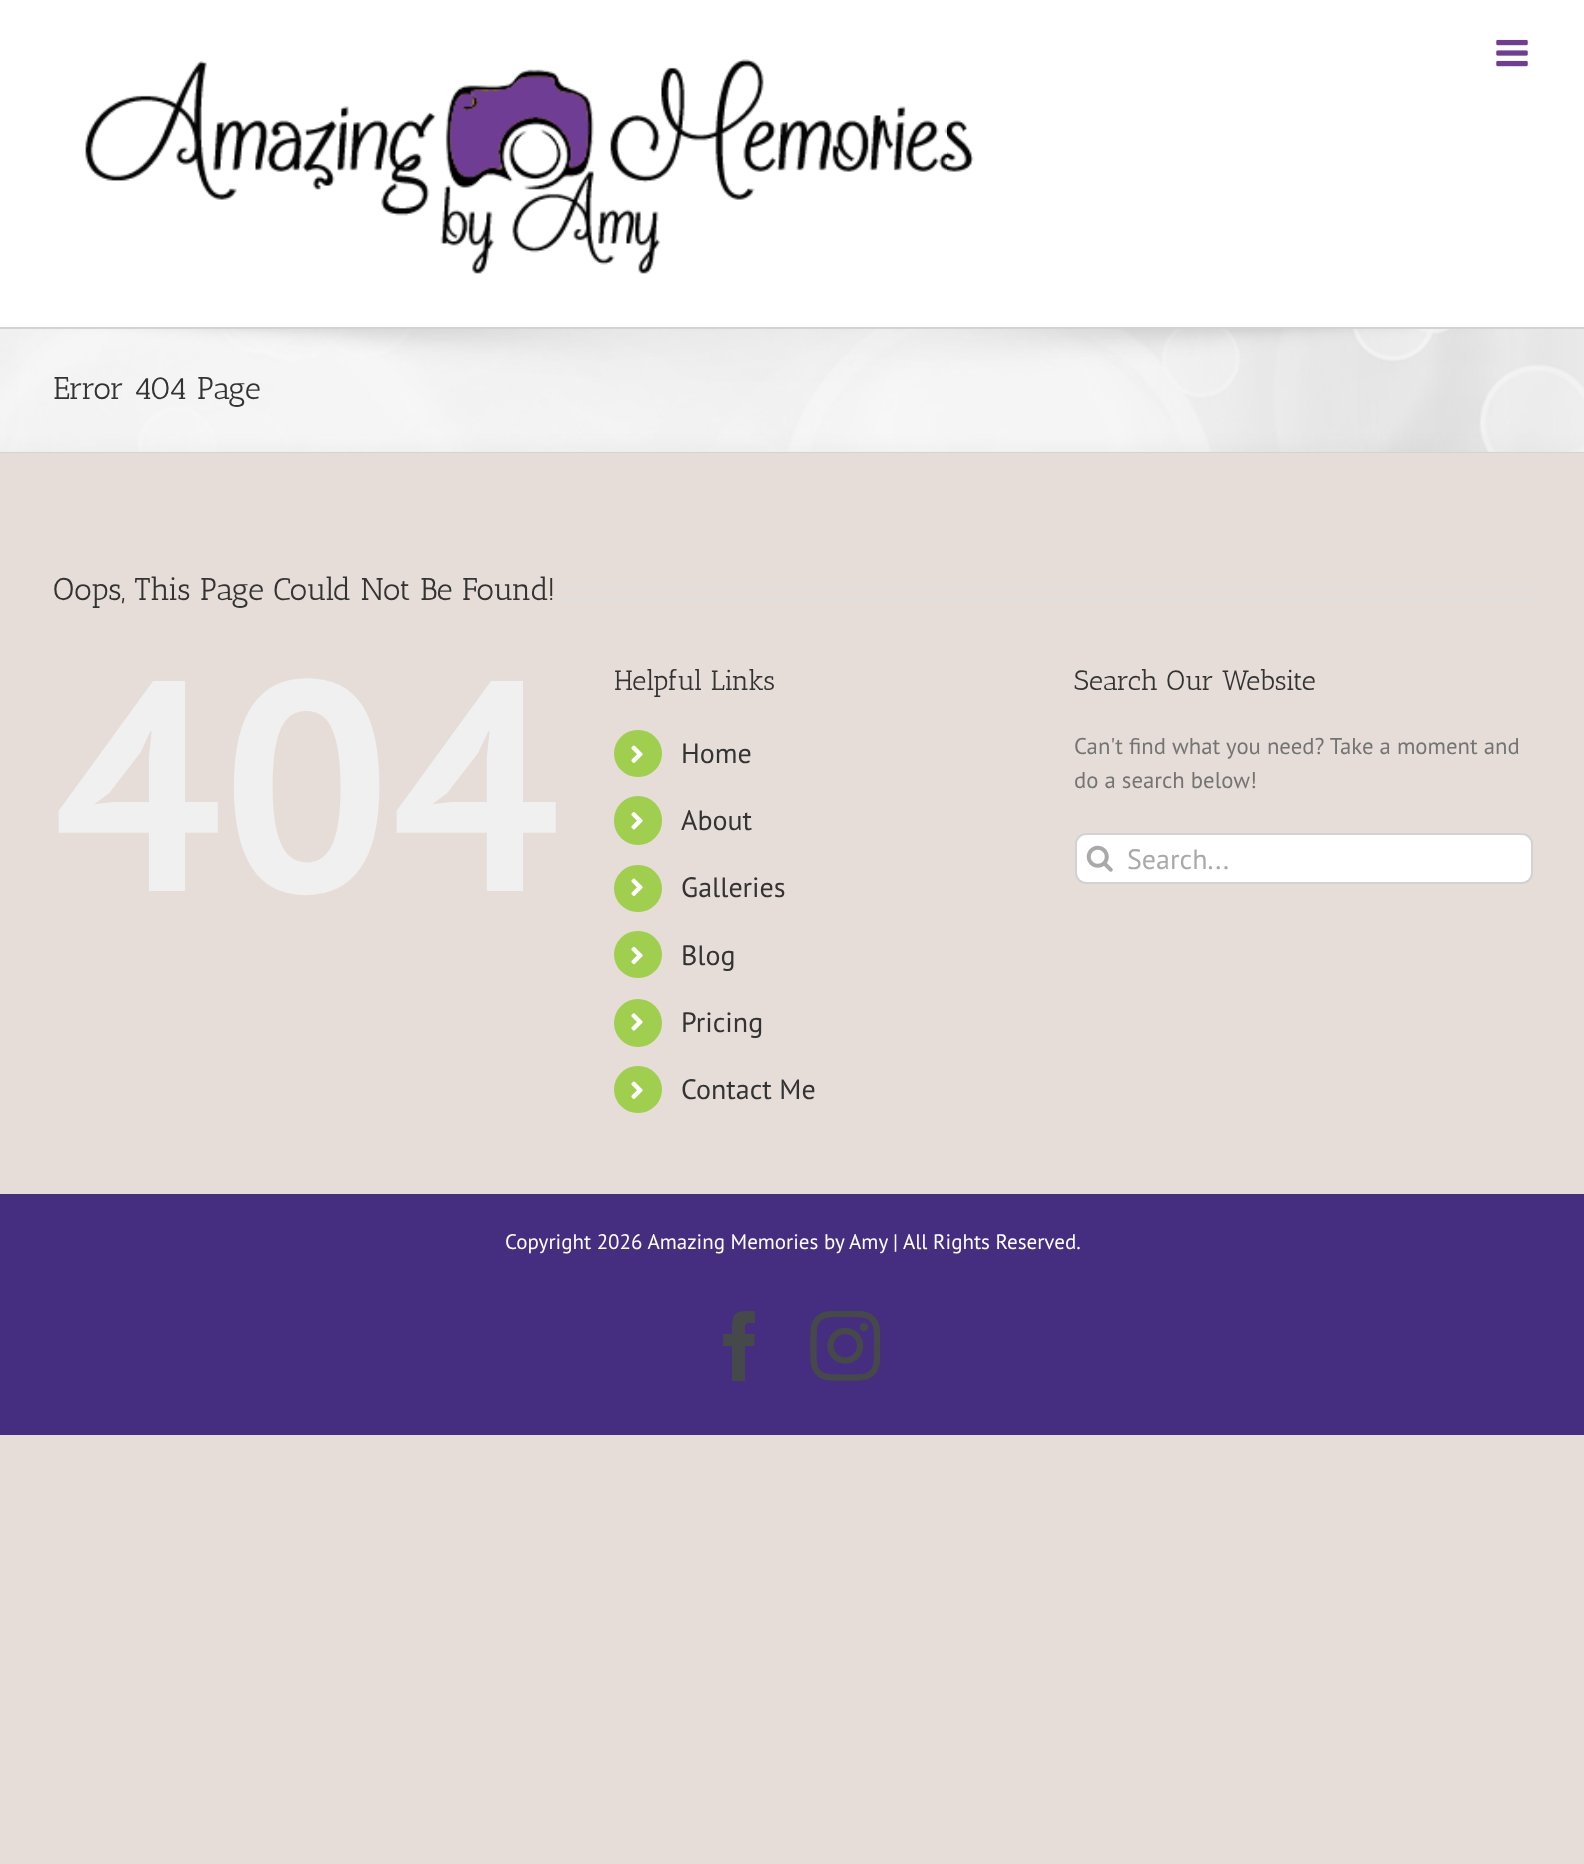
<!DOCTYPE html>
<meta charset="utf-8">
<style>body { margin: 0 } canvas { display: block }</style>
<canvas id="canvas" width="1584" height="1864"></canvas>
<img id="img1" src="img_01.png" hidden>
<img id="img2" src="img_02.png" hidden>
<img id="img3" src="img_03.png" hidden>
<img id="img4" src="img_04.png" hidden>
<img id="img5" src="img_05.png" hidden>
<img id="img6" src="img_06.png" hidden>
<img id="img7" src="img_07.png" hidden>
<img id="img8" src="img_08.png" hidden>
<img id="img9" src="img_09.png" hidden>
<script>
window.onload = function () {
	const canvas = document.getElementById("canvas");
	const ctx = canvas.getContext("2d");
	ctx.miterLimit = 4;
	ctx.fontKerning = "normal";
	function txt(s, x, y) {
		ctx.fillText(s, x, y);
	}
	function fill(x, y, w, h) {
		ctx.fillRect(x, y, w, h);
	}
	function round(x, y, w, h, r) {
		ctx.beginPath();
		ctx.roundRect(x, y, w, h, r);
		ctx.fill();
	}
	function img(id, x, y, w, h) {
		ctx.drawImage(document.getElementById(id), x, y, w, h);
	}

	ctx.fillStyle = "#E6DDD8";
	fill(0, 0, 1584, 1864);
	ctx.fillStyle = "#FFFFFF";
	fill(0, 0, 1584, 327);
	img("img1", 1496, 39, 32, 28);
	img("img2", 85, 59, 889, 215);
	ctx.fillStyle = "#F6F6F6";
	fill(0, 329, 1584, 123);
	img("img3", 0, 329, 1584, 123);
	ctx.fillStyle = "#D2D3D4";
	fill(0, 327, 1584, 2);
	fill(0, 452, 1584, 1);
	ctx.fillStyle = "#E0DEDE";
	fill(562, 586, 971, 2);
	fill(562, 599, 971, 2);
	ctx.fillStyle = "#A0CE4E";
	round(614, 730, 48, 47, 23.5);
	img("img4", 631, 745, 12, 18);
	round(614, 796, 48, 49, 24);
	img("img5", 631, 812, 12, 18);
	round(614, 865, 48, 47, 23.5);
	img("img4", 631, 878, 12, 18);
	round(614, 931, 48, 47, 23.5);
	img("img6", 631, 946, 12, 19);
	ctx.beginPath();
	ctx.arc(638, 1023, 24, 0, Math.PI * 2);
	ctx.fill();
	img("img7", 631, 1013, 12, 18);
	round(614, 1066, 48, 47, 23.5);
	img("img4", 631, 1081, 12, 18);
	ctx.fillStyle = "#FFFFFF";
	ctx.beginPath();
	ctx.roundRect(1076, 834, 456, 49, 10);
	ctx.fill();
	ctx.strokeStyle = "#D2D2D2";
	ctx.lineWidth = 2;
	ctx.stroke();
	img("img8", 1086, 845, 27, 27);
	ctx.fillStyle = "#452E80";
	fill(0, 1194, 1584, 241);
	ctx.fillStyle = "#46494A";
	ctx.beginPath();
	ctx.moveTo(745, 1381);
	ctx.lineTo(732, 1381);
	ctx.lineTo(732, 1346);
	ctx.lineTo(723, 1346);
	ctx.lineTo(723, 1334);
	ctx.lineTo(732, 1334);
	ctx.bezierCurveTo(732, 1311, 734, 1311, 755, 1311);
	ctx.lineTo(755, 1323);
	ctx.bezierCurveTo(744, 1323, 745, 1322, 745, 1334);
	ctx.lineTo(755, 1334);
	ctx.lineTo(754, 1346);
	ctx.lineTo(745, 1346);
	ctx.closePath();
	ctx.fill();
	img("img9", 810, 1311, 70, 70);
	ctx.font = "31.5px Antic Slab";
	ctx.fillStyle = "#333333";
	txt("Error 404 Page", 53, 399);
	txt("Oops, This Page Could Not Be Found!", 53, 600);
	ctx.font = "bold 298px PT Sans";
	ctx.fillStyle = "#F0F0F0";
	txt("404", 53, 891);
	ctx.font = "28px Antic Slab";
	ctx.fillStyle = "#333333";
	txt("Helpful Links", 614, 690);
	ctx.font = "28px PT Sans";
	txt("Home", 681, 763);
	txt("About", 681, 830);
	txt("Galleries", 681, 897);
	txt("Blog", 681, 965);
	txt("Pricing", 681, 1032);
	txt("Contact Me", 681, 1099);
	ctx.font = "28px Antic Slab";
	txt("Search Our Website", 1074, 690);
	ctx.font = "22.75px PT Sans";
	ctx.fillStyle = "#747474";
	txt("Can't find what you need? Take a moment and", 1074, 754);
	txt("do a search below!", 1074, 788);
	ctx.font = "28px PT Sans";
	ctx.fillStyle = "#AAA9A9";
	txt("Search...", 1127, 869);
	ctx.font = "21px PT Sans";
	ctx.fillStyle = "#FFFFFF";
	txt("Copyright 2026 Amazing Memories by Amy | All Rights Reserved.", 505, 1249);
};
</script>
